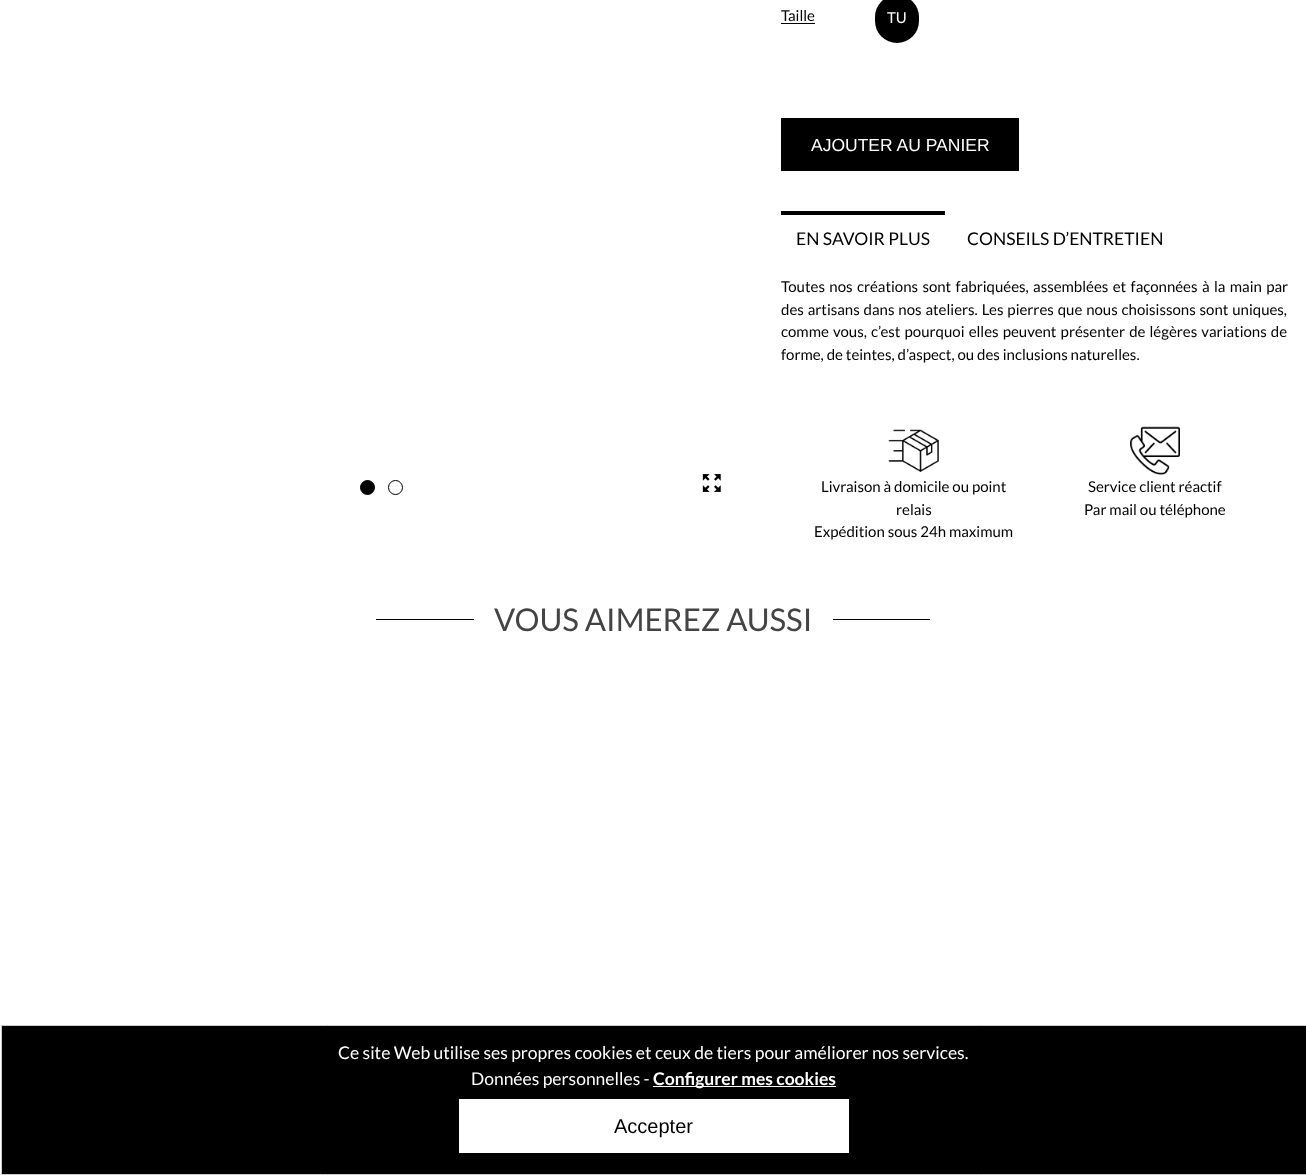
<!DOCTYPE html>
<meta charset="utf-8">
<style>body { margin: 0 } canvas { display: block }</style>
<canvas id="canvas" width="1306" height="1175"></canvas>
<img id="img1" src="img_01.png" hidden>
<img id="img2" src="img_02.png" hidden>
<img id="img3" src="img_03.png" hidden>
<script>
window.onload = function () {
	const canvas = document.getElementById("canvas");
	const ctx = canvas.getContext("2d");
	ctx.miterLimit = 4;
	ctx.fontKerning = "normal";
	function txt(s, x, y) {
		ctx.fillText(s, x, y);
	}
	function fill(x, y, w, h) {
		ctx.fillRect(x, y, w, h);
	}
	function round(x, y, w, h, r) {
		ctx.beginPath();
		ctx.roundRect(x, y, w, h, r);
		ctx.fill();
	}
	function img(id, x, y, w, h) {
		ctx.drawImage(document.getElementById(id), x, y, w, h);
	}

	ctx.fillStyle = "#FFFFFF";
	fill(0, 0, 1306, 1175);
	ctx.fillStyle = "#000000";
	ctx.beginPath();
	ctx.arc(367.5, 487.5, 7, 0, Math.PI * 2);
	ctx.fill();
	ctx.strokeStyle = "#000000";
	ctx.stroke();
	ctx.beginPath();
	ctx.arc(395.5, 487.5, 7, 0, Math.PI * 2);
	ctx.stroke();
	img("img1", 702, 474, 19, 18);
	fill(781, 23, 34, 1);
	round(875, -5, 44, 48, 22);
	fill(781, 118, 238, 53);
	fill(781, 211, 164, 4);
	img("img2", 888, 429, 51, 43);
	img("img3", 1130, 426, 50, 49);
	fill(376, 619, 98, 1);
	fill(833, 619, 97, 1);
	ctx.beginPath();
	ctx.rect(1.5, 1025.5, 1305, 149);
	ctx.fill();
	ctx.strokeStyle = "#CCCCCC";
	ctx.stroke();
	ctx.fillStyle = "#FFFFFF";
	fill(653, 1086, 183, 1);
	fill(459, 1099, 390, 54);
	ctx.font = "15px Lato";
	ctx.fillStyle = "#000000";
	txt("Taille", 781, 21);
	ctx.fillStyle = "#FFFFFF";
	txt("TU", 887, 23);
	ctx.font = "17.5px Liberation Sans";
	txt("AJOUTER AU PANIER", 811, 151);
	ctx.font = "17.5px Lato";
	ctx.fillStyle = "#000000";
	txt("EN SAVOIR PLUS", 796, 245);
	txt("CONSEILS D’ENTRETIEN", 967, 245);
	ctx.wordSpacing = "1.5px";
	ctx.font = "15px Lato";
	txt("Toutes nos créations sont fabriquées, assemblées et façonnées à la main par", 781, 292);
	ctx.wordSpacing = "1px";
	txt("des artisans dans nos ateliers. Les pierres que nous choisissons sont uniques,", 781, 315);
	ctx.wordSpacing = "1.25px";
	txt("comme vous, c’est pourquoi elles peuvent présenter de légères variations de", 781, 337);
	ctx.wordSpacing = "0px";
	txt("forme, de teintes, d’aspect, ou des inclusions naturelles.", 781, 360);
	txt("Livraison à domicile ou point", 821, 492);
	txt("relais", 896, 515);
	txt("Expédition sous 24h maximum", 814, 537);
	txt("Service client réactif", 1088, 492);
	txt("Par mail ou téléphone", 1084, 515);
	ctx.font = "31.25px Lato";
	ctx.fillStyle = "#444444";
	txt("VOUS AIMEREZ AUSSI", 494, 631);
	ctx.font = "17.5px Lato";
	ctx.fillStyle = "#FFFFFF";
	txt("Ce site Web utilise ses propres cookies et ceux de tiers pour améliorer nos services.", 338, 1059);
	txt("Données personnelles -", 471, 1085);
	ctx.font = "bold 17.5px Lato";
	txt("Configurer mes cookies", 653, 1085);
	ctx.font = "20px Liberation Sans";
	ctx.fillStyle = "#000000";
	txt("Accepter", 614, 1133);
};
</script>
